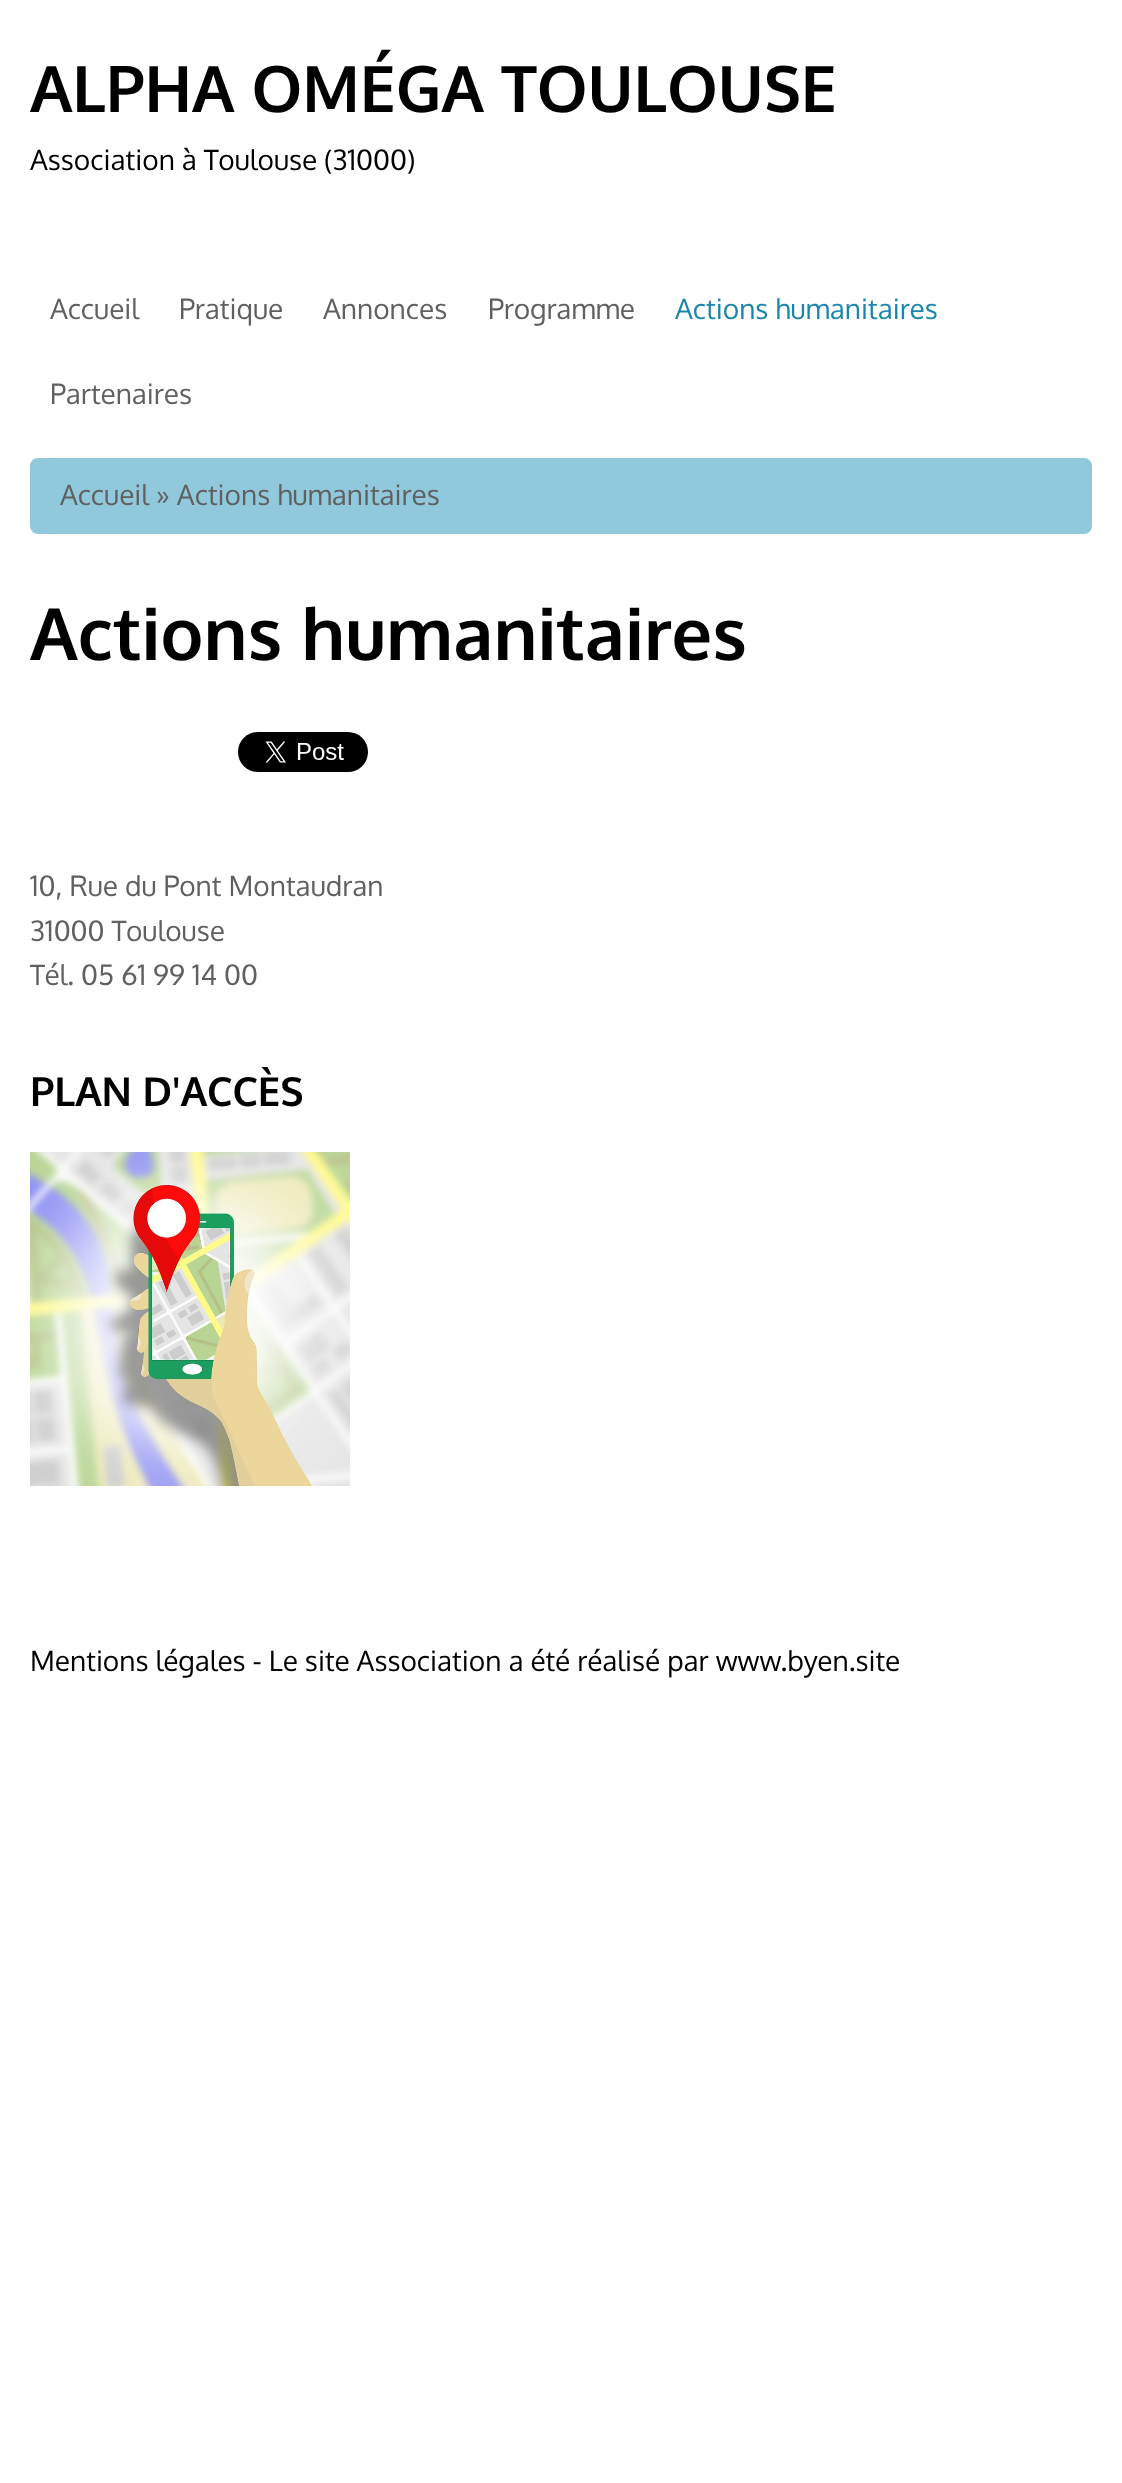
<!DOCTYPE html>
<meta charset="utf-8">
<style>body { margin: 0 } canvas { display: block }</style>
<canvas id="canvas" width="1122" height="2483"></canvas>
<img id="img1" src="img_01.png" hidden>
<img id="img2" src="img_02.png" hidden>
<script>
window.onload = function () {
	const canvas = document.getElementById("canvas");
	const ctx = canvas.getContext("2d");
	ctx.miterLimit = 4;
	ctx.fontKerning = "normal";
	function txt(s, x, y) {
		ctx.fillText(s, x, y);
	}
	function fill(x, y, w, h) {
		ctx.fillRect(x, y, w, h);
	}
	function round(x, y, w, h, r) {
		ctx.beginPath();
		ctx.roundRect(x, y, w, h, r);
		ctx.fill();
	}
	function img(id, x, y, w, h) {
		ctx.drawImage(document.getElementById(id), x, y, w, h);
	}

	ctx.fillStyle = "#FFFFFF";
	fill(0, 0, 1122, 2483);
	ctx.fillStyle = "#90C9DB";
	round(30, 458, 1062, 76, 8);
	img("img1", 238, 732, 130, 40);
	img("img2", 30, 1152, 320, 334);
	ctx.font = "bold 64px Oxygen";
	ctx.fillStyle = "#000000";
	txt("ALPHA OMÉGA TOULOUSE", 30, 112);
	ctx.font = "28px Oxygen";
	txt("Association à Toulouse (31000)", 30, 170);
	ctx.fillStyle = "#606060";
	txt("Accueil", 50, 319);
	txt("Pratique", 179, 319);
	txt("Annonces", 323, 319);
	txt("Programme", 488, 319);
	ctx.fillStyle = "#1B86AC";
	txt("Actions humanitaires", 675, 319);
	ctx.fillStyle = "#606060";
	txt("Partenaires", 50, 404);
	txt("Accueil » Actions humanitaires", 60, 505);
	ctx.font = "bold 72px Oxygen";
	ctx.fillStyle = "#000000";
	txt("Actions humanitaires", 30, 660);
	ctx.font = "28px Oxygen";
	ctx.fillStyle = "#606060";
	txt("10, Rue du Pont Montaudran", 30, 896);
	txt("31000 Toulouse", 30, 941);
	txt("Tél. 05 61 99 14 00", 30, 985);
	ctx.font = "bold 40px Oxygen";
	ctx.fillStyle = "#000000";
	txt("PLAN D'ACCÈS", 30, 1106);
	ctx.font = "28px Oxygen";
	txt("Mentions légales - Le site Association a été réalisé par www.byen.site", 30, 1671);
};
</script>
